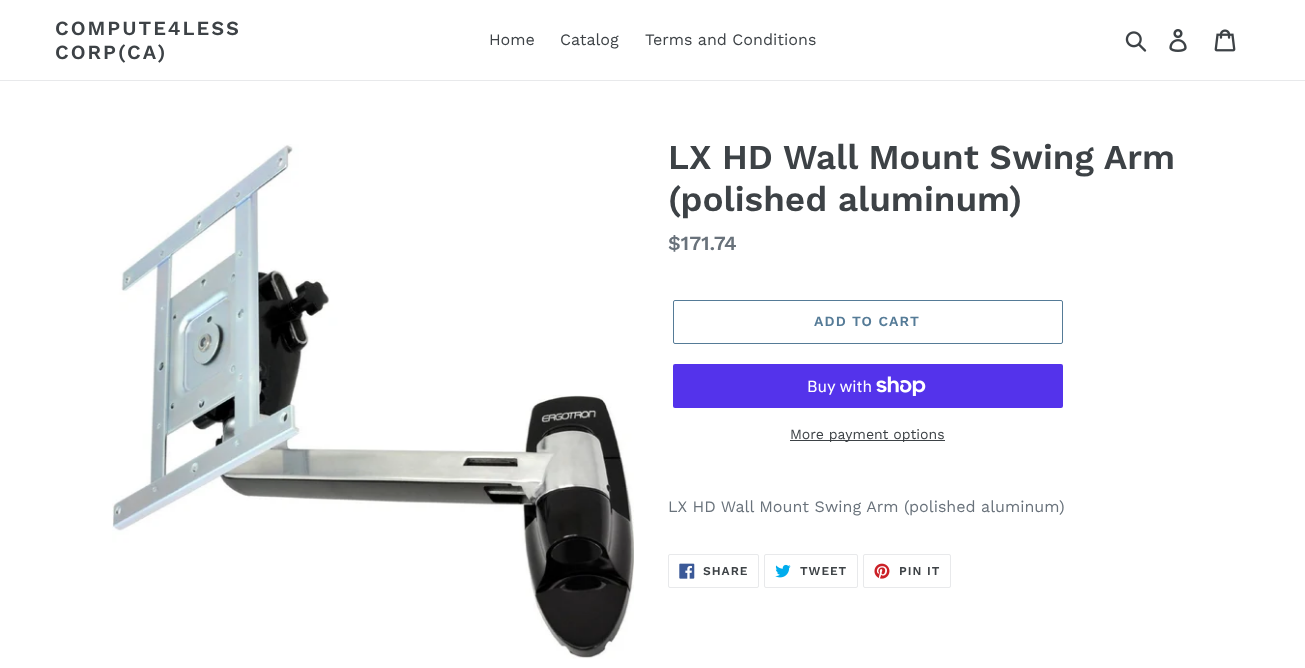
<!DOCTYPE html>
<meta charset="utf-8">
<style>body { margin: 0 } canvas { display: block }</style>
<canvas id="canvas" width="1305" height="668"></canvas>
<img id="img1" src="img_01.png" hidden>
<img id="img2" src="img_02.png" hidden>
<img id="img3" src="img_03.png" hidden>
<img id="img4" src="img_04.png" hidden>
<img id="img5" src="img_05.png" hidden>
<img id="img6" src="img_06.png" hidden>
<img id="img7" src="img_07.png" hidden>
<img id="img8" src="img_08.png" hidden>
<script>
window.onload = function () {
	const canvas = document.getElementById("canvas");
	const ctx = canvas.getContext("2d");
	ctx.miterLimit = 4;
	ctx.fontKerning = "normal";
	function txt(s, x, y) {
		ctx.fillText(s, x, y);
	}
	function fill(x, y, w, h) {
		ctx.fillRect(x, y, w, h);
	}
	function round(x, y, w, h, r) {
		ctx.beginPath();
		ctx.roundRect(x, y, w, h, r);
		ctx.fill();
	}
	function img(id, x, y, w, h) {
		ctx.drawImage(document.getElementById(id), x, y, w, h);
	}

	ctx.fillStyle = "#FFFFFF";
	fill(0, 0, 1305, 668);
	ctx.fillStyle = "#E8E9EB";
	fill(0, 80, 1305, 1);
	img("img1", 1125, 31, 22, 21);
	img("img2", 1169, 29, 18, 23);
	img("img3", 1214, 29, 22, 23);
	img("img4", 112, 144, 522, 515);
	ctx.beginPath();
	ctx.roundRect(673.5, 300.5, 389, 43, 1.5);
	ctx.strokeStyle = "#557B97";
	ctx.stroke();
	ctx.fillStyle = "#5433EB";
	round(673, 364, 390, 44, 2);
	img("img5", 876, 376, 50, 20);
	ctx.fillStyle = "#3D4246";
	fill(790, 440, 155, 1);
	ctx.beginPath();
	ctx.roundRect(668.5, 554.5, 90, 33, 1.5);
	ctx.strokeStyle = "#E8E9EB";
	ctx.stroke();
	img("img6", 679, 563, 16, 16);
	ctx.beginPath();
	ctx.roundRect(764.5, 554.5, 93, 33, 1.5);
	ctx.stroke();
	img("img7", 775, 564, 16, 14);
	ctx.beginPath();
	ctx.roundRect(863.5, 554.5, 87, 33, 1.5);
	ctx.stroke();
	img("img8", 874, 563, 16, 16);
	ctx.letterSpacing = "2px";
	ctx.font = "600 20px Work Sans";
	txt("COMPUTE4LESS", 55, 35);
	txt("CORP(CA)", 55, 59);
	ctx.letterSpacing = "0px";
	ctx.font = "16px Work Sans";
	txt("Home", 489, 45);
	txt("Catalog", 560, 45);
	txt("Terms and Conditions", 645, 45);
	ctx.font = "600 35px Work Sans";
	txt("LX HD Wall Mount Swing Arm", 668, 169);
	txt("(polished aluminum)", 668, 211);
	ctx.font = "600 20px Work Sans";
	ctx.fillStyle = "#69727B";
	txt("$171.74", 668, 250);
	ctx.letterSpacing = "1.1px";
	ctx.font = "600 14px Work Sans";
	ctx.fillStyle = "#557B97";
	txt("ADD TO CART", 814, 326);
	ctx.letterSpacing = "0px";
	ctx.font = "16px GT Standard";
	ctx.fillStyle = "#FFFFFF";
	txt("Buy with", 807, 392);
	ctx.font = "14px Work Sans";
	ctx.fillStyle = "#3D4246";
	txt("More payment options", 790, 439);
	ctx.font = "16px Work Sans";
	ctx.fillStyle = "#69727B";
	txt("LX HD Wall Mount Swing Arm (polished aluminum)", 668, 512);
	ctx.letterSpacing = "1px";
	ctx.font = "600 12px Work Sans";
	ctx.fillStyle = "#3D4246";
	txt("SHARE", 703, 575);
	txt("TWEET", 800, 575);
	txt("PIN IT", 899, 575);
};
</script>
